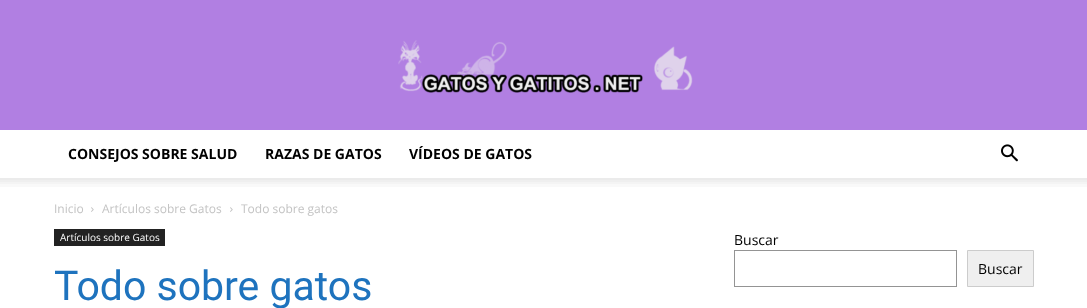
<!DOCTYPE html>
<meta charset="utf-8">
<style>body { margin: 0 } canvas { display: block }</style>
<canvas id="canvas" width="1087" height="308"></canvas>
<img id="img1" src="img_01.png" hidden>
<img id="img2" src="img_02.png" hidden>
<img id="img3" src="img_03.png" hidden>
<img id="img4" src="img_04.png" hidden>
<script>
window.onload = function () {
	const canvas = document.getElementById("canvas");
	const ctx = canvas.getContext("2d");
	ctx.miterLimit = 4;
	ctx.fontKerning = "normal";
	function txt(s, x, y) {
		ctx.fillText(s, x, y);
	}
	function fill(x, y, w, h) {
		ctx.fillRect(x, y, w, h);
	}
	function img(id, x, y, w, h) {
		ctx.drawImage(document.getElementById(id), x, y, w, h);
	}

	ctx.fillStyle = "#FFFFFF";
	fill(0, 0, 1087, 308);
	ctx.fillStyle = "#B17FE2";
	fill(0, 0, 1087, 130);
	img("img1", 398, 40, 295, 53);
	img("img2", 1001, 144, 17, 18);
	img("img3", 0, 178, 1087, 9);
	img("img4", 91, 207, 3, 5);
	img("img4", 230, 207, 3, 5);
	ctx.fillStyle = "#222222";
	fill(54, 229, 111, 17);
	ctx.strokeStyle = "#949494";
	ctx.strokeRect(734.5, 250.5, 222, 36);
	ctx.fillStyle = "#EFEFEF";
	ctx.beginPath();
	ctx.rect(967.5, 250.5, 66, 36);
	ctx.fill();
	ctx.strokeStyle = "#CCCCCC";
	ctx.stroke();
	ctx.font = "bold 14px Open Sans";
	ctx.fillStyle = "#000000";
	txt("CONSEJOS SOBRE SALUD", 68, 159);
	txt("RAZAS DE GATOS", 265, 159);
	txt("VÍDEOS DE GATOS", 409, 159);
	ctx.font = "12px Open Sans";
	ctx.fillStyle = "#C3C3C3";
	txt("Inicio", 54, 213);
	txt("Artículos sobre Gatos", 102, 213);
	txt("Todo sobre gatos", 241, 213);
	ctx.font = "10px Open Sans";
	ctx.fillStyle = "#FFFFFF";
	txt("Artículos sobre Gatos", 60, 241);
	ctx.font = "41px Roboto";
	ctx.fillStyle = "#1E73BE";
	txt("Todo sobre gatos", 54, 300);
	ctx.font = "14px Open Sans";
	ctx.fillStyle = "#000000";
	txt("Buscar", 734, 245);
	txt("Buscar", 978, 274);
};
</script>
